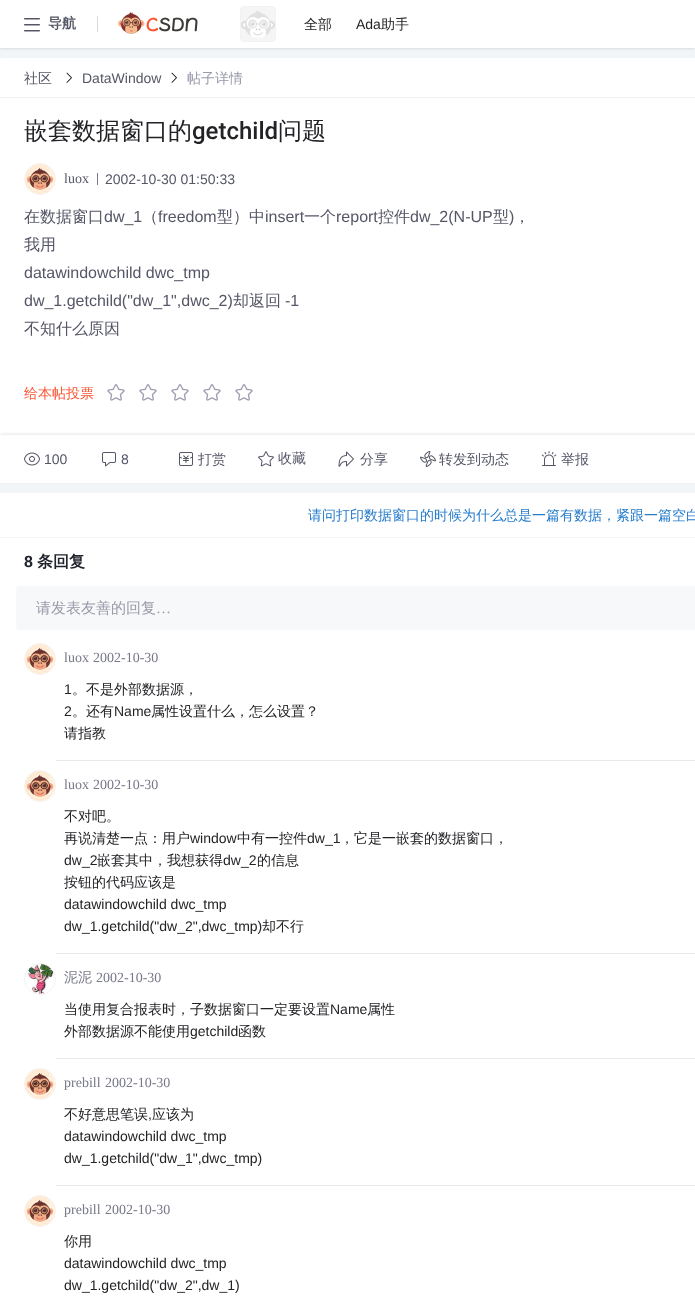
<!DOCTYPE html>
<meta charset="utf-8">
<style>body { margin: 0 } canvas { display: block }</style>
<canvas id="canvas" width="695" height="1307"></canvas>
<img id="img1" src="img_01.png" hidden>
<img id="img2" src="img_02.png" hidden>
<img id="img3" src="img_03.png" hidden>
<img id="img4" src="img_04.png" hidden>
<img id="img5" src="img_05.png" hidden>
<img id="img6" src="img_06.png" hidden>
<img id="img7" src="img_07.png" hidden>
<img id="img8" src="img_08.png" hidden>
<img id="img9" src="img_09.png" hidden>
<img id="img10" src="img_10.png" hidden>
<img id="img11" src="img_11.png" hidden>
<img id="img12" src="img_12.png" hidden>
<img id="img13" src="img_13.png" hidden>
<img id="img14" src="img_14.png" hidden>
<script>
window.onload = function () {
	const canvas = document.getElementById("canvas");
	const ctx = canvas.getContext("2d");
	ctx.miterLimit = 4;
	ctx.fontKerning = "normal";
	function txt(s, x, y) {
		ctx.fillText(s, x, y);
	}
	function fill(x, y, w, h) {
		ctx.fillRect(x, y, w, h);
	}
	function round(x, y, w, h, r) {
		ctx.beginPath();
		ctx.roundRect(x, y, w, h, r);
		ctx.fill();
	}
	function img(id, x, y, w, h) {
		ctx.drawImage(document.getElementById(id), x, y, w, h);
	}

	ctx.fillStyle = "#F2F5F7";
	fill(0, 0, 695, 1307);
	ctx.fillStyle = "rgba(0, 0, 0, 0.1)";
	ctx.filter = "blur(1px)";
	ctx.beginPath();
	ctx.rect(0, 1, 695, 48);
	ctx.fill();
	ctx.filter = "none";
	ctx.fillStyle = "#FFFFFF";
	fill(0, 0, 695, 48);
	img("img1", 24, 18, 16, 14);
	ctx.fillStyle = "#D8D8D8";
	round(97, 16, 1, 16, 0.5);
	img("img2", 118, 12, 80, 22);
	ctx.beginPath();
	ctx.roundRect(240.5, 6.5, 35, 35, 3.5);
	ctx.strokeStyle = "#F2F2F2";
	ctx.stroke();
	img("img3", 241, 7, 34, 34);
	ctx.fillStyle = "#FFFFFF";
	ctx.beginPath();
	ctx.moveTo(2, 58);
	ctx.lineTo(695, 58);
	ctx.bezierCurveTo(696, 58, 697, 59, 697, 60);
	ctx.lineTo(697, 98);
	ctx.lineTo(0, 98);
	ctx.lineTo(0, 60);
	ctx.bezierCurveTo(0, 59, 1, 58, 2, 58);
	ctx.closePath();
	ctx.fill();
	ctx.fillStyle = "#F2F2F2";
	fill(0, 97, 695, 1);
	img("img4", 66, 72, 6, 11);
	img("img4", 171, 72, 6, 11);
	ctx.fillStyle = "#FFFFFF";
	fill(0, 98, 695, 337);
	ctx.beginPath();
	ctx.arc(40, 179, 15.5, 0, Math.PI * 2);
	ctx.stroke();
	img("img5", 25, 164, 30, 30);
	ctx.fillStyle = "#777888";
	fill(97, 173, 1, 12);
	img("img6", 107, 384, 18, 17);
	img("img6", 139, 384, 18, 17);
	img("img6", 171, 384, 18, 17);
	img("img6", 203, 384, 18, 17);
	img("img6", 235, 384, 18, 17);
	ctx.fillStyle = "rgba(18, 18, 18, 0.1)";
	ctx.filter = "blur(1.5px)";
	ctx.beginPath();
	ctx.rect(0, 434, 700, 48);
	ctx.fill();
	ctx.filter = "none";
	ctx.fillStyle = "#FFFFFF";
	fill(0, 435, 695, 48);
	img("img7", 24, 452, 16, 14);
	img("img8", 102, 452, 14, 15);
	img("img9", 179, 452, 14, 14);
	img("img10", 258, 451, 16, 16);
	img("img11", 338, 451, 16, 16);
	img("img12", 420, 451, 16, 16);
	img("img13", 541, 451, 16, 15);
	fill(0, 493, 695, 44);
	fill(0, 538, 695, 769);
	ctx.fillStyle = "#F7F8F9";
	round(16, 586, 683, 44, 4);
	ctx.beginPath();
	ctx.arc(40, 659, 15.5, 0, Math.PI * 2);
	ctx.stroke();
	img("img5", 25, 644, 30, 30);
	ctx.fillStyle = "#E8E8ED";
	fill(56, 760, 639, 1);
	ctx.beginPath();
	ctx.arc(40, 786, 15.5, 0, Math.PI * 2);
	ctx.stroke();
	img("img5", 25, 771, 30, 30);
	fill(56, 953, 639, 1);
	ctx.beginPath();
	ctx.arc(40, 979, 15.5, 0, Math.PI * 2);
	ctx.stroke();
	img("img14", 26, 964, 28, 30);
	fill(56, 1058, 639, 1);
	ctx.beginPath();
	ctx.arc(40, 1084, 15.5, 0, Math.PI * 2);
	ctx.stroke();
	img("img5", 25, 1069, 30, 30);
	fill(56, 1185, 639, 1);
	ctx.beginPath();
	ctx.arc(40, 1211, 15.5, 0, Math.PI * 2);
	ctx.stroke();
	img("img5", 25, 1196, 30, 30);
	ctx.font = "bold 14px WenQuanYi Zen Hei";
	ctx.fillStyle = "#555666";
	txt("导航", 48, 28);
	ctx.font = "500 14px WenQuanYi Zen Hei";
	ctx.fillStyle = "#222226";
	txt("全部", 304, 29);
	ctx.font = "14px Liberation Sans";
	txt("Ada", 356, 29);
	ctx.font = "500 14px WenQuanYi Zen Hei";
	txt("助手", 381, 29);
	ctx.fillStyle = "#555666";
	txt("社区", 24, 83);
	ctx.font = "14px Liberation Sans";
	txt("DataWindow", 82, 83);
	ctx.font = "500 14px WenQuanYi Zen Hei";
	ctx.fillStyle = "#999AAA";
	txt("帖子详情", 187, 83);
	ctx.font = "500 24px WenQuanYi Zen Hei";
	ctx.fillStyle = "#222226";
	txt("嵌套数据窗口的", 24, 139);
	ctx.font = "500 24px Roboto";
	txt("getchild", 192, 139);
	ctx.font = "500 24px WenQuanYi Zen Hei";
	txt("问题", 278, 139);
	ctx.font = "14px Liberation Serif";
	ctx.fillStyle = "#555666";
	txt("luox", 64, 183);
	ctx.font = "14px Liberation Sans";
	txt("2002-10-30 01:50:33", 105, 184);
	ctx.font = "500 16px WenQuanYi Zen Hei";
	txt("在数据窗口", 24, 222);
	ctx.font = "16px Liberation Sans";
	txt("dw_1", 104, 222);
	ctx.font = "500 16px WenQuanYi Zen Hei";
	txt("（", 142, 222);
	ctx.font = "16px Liberation Sans";
	txt("freedom", 158, 222);
	ctx.font = "500 16px WenQuanYi Zen Hei";
	txt("型）中", 217, 222);
	ctx.font = "16px Liberation Sans";
	txt("insert", 265, 222);
	ctx.font = "500 16px WenQuanYi Zen Hei";
	txt("一个", 304, 222);
	ctx.font = "16px Liberation Sans";
	txt("report", 336, 222);
	ctx.font = "500 16px WenQuanYi Zen Hei";
	txt("控件", 378, 222);
	ctx.font = "16px Liberation Sans";
	txt("dw_2(N-UP", 410, 222);
	ctx.font = "500 16px WenQuanYi Zen Hei";
	txt("型", 493, 222);
	ctx.font = "16px Liberation Sans";
	txt(")", 509, 222);
	ctx.font = "500 16px WenQuanYi Zen Hei";
	txt("，", 514, 222);
	txt("我用", 24, 250);
	ctx.font = "16px Liberation Sans";
	txt("datawindowchild dwc_tmp", 24, 278);
	txt("dw_1.getchild(\"dw_1\",dwc_2)", 24, 306);
	ctx.font = "500 16px WenQuanYi Zen Hei";
	txt("却返回", 233, 306);
	ctx.font = "16px Liberation Sans";
	txt("-1", 285, 306);
	ctx.font = "500 16px WenQuanYi Zen Hei";
	txt("不知什么原因", 24, 334);
	ctx.font = "500 14px WenQuanYi Zen Hei";
	ctx.fillStyle = "#FC5533";
	txt("给本帖投票", 24, 398);
	ctx.font = "14px Liberation Sans";
	ctx.fillStyle = "#555666";
	txt("100", 44, 464);
	txt("8", 121, 464);
	ctx.font = "500 14px WenQuanYi Zen Hei";
	txt("打赏", 198, 464);
	txt("收藏", 278, 463);
	txt("分享", 360, 464);
	txt("转发到动态", 439, 464);
	txt("举报", 561, 464);
	ctx.fillStyle = "#277CCC";
	txt("请问打印数据窗口的时候为什么总是一篇有数据，紧跟一篇空白", 308, 520);
	ctx.font = "bold 16px Liberation Sans";
	ctx.fillStyle = "#20232C";
	txt("8", 24, 567);
	ctx.font = "bold 16px WenQuanYi Zen Hei";
	txt("条回复", 37, 567);
	ctx.font = "500 15px WenQuanYi Zen Hei";
	ctx.fillStyle = "#999AAA";
	txt("请发表友善的回复", 36, 613);
	ctx.font = "15px Liberation Serif";
	txt("…", 156, 613);
	ctx.font = "14px Liberation Serif";
	ctx.fillStyle = "#777888";
	txt("luox", 64, 662);
	txt("2002-10-30", 93, 662);
	ctx.font = "14px Liberation Sans";
	ctx.fillStyle = "#222226";
	txt("1", 64, 694);
	ctx.font = "500 14px WenQuanYi Zen Hei";
	txt("。不是外部数据源，", 72, 694);
	ctx.font = "14px Liberation Sans";
	txt("2", 64, 716);
	ctx.font = "500 14px WenQuanYi Zen Hei";
	txt("。还有", 72, 716);
	ctx.font = "14px Liberation Sans";
	txt("Name", 114, 716);
	ctx.font = "500 14px WenQuanYi Zen Hei";
	txt("属性设置什么，怎么设置？", 151, 716);
	txt("请指教", 64, 738);
	ctx.font = "14px Liberation Serif";
	ctx.fillStyle = "#777888";
	txt("luox", 64, 789);
	txt("2002-10-30", 93, 789);
	ctx.font = "500 14px WenQuanYi Zen Hei";
	ctx.fillStyle = "#222226";
	txt("不对吧。", 64, 821);
	txt("再说清楚一点：用户", 64, 843);
	ctx.font = "14px Liberation Sans";
	txt("window", 190, 843);
	ctx.font = "500 14px WenQuanYi Zen Hei";
	txt("中有一控件", 237, 843);
	ctx.font = "14px Liberation Sans";
	txt("dw_1", 307, 843);
	ctx.font = "500 14px WenQuanYi Zen Hei";
	txt("，它是一嵌套的数据窗口，", 340, 843);
	ctx.font = "14px Liberation Sans";
	txt("dw_2", 64, 865);
	ctx.font = "500 14px WenQuanYi Zen Hei";
	txt("嵌套其中，我想获得", 97, 865);
	ctx.font = "14px Liberation Sans";
	txt("dw_2", 223, 865);
	ctx.font = "500 14px WenQuanYi Zen Hei";
	txt("的信息", 257, 865);
	txt("按钮的代码应该是", 64, 887);
	ctx.font = "14px Liberation Sans";
	txt("datawindowchild dwc_tmp", 64, 909);
	txt("dw_1.getchild(\"dw_2\",dwc_tmp)", 64, 931);
	ctx.font = "500 14px WenQuanYi Zen Hei";
	txt("却不行", 262, 931);
	ctx.fillStyle = "#777888";
	txt("泥泥", 64, 982);
	ctx.font = "14px Liberation Serif";
	txt("2002-10-30", 96, 982);
	ctx.font = "500 14px WenQuanYi Zen Hei";
	ctx.fillStyle = "#222226";
	txt("当使用复合报表时，子数据窗口一定要设置", 64, 1014);
	ctx.font = "14px Liberation Sans";
	txt("Name", 330, 1014);
	ctx.font = "500 14px WenQuanYi Zen Hei";
	txt("属性", 367, 1014);
	txt("外部数据源不能使用", 64, 1036);
	ctx.font = "14px Liberation Sans";
	txt("getchild", 190, 1036);
	ctx.font = "500 14px WenQuanYi Zen Hei";
	txt("函数", 238, 1036);
	ctx.font = "14px Liberation Serif";
	ctx.fillStyle = "#777888";
	txt("prebill", 64, 1087);
	txt("2002-10-30", 105, 1087);
	ctx.font = "500 14px WenQuanYi Zen Hei";
	ctx.fillStyle = "#222226";
	txt("不好意思笔误", 64, 1119);
	ctx.font = "14px Liberation Sans";
	txt(",", 148, 1119);
	ctx.font = "500 14px WenQuanYi Zen Hei";
	txt("应该为", 152, 1119);
	ctx.font = "14px Liberation Sans";
	txt("datawindowchild dwc_tmp", 64, 1141);
	txt("dw_1.getchild(\"dw_1\",dwc_tmp)", 64, 1163);
	ctx.font = "14px Liberation Serif";
	ctx.fillStyle = "#777888";
	txt("prebill", 64, 1214);
	txt("2002-10-30", 105, 1214);
	ctx.font = "500 14px WenQuanYi Zen Hei";
	ctx.fillStyle = "#222226";
	txt("你用", 64, 1246);
	ctx.font = "14px Liberation Sans";
	txt("datawindowchild dwc_tmp", 64, 1268);
	txt("dw_1.getchild(\"dw_2\",dw_1)", 64, 1290);
};
</script>
